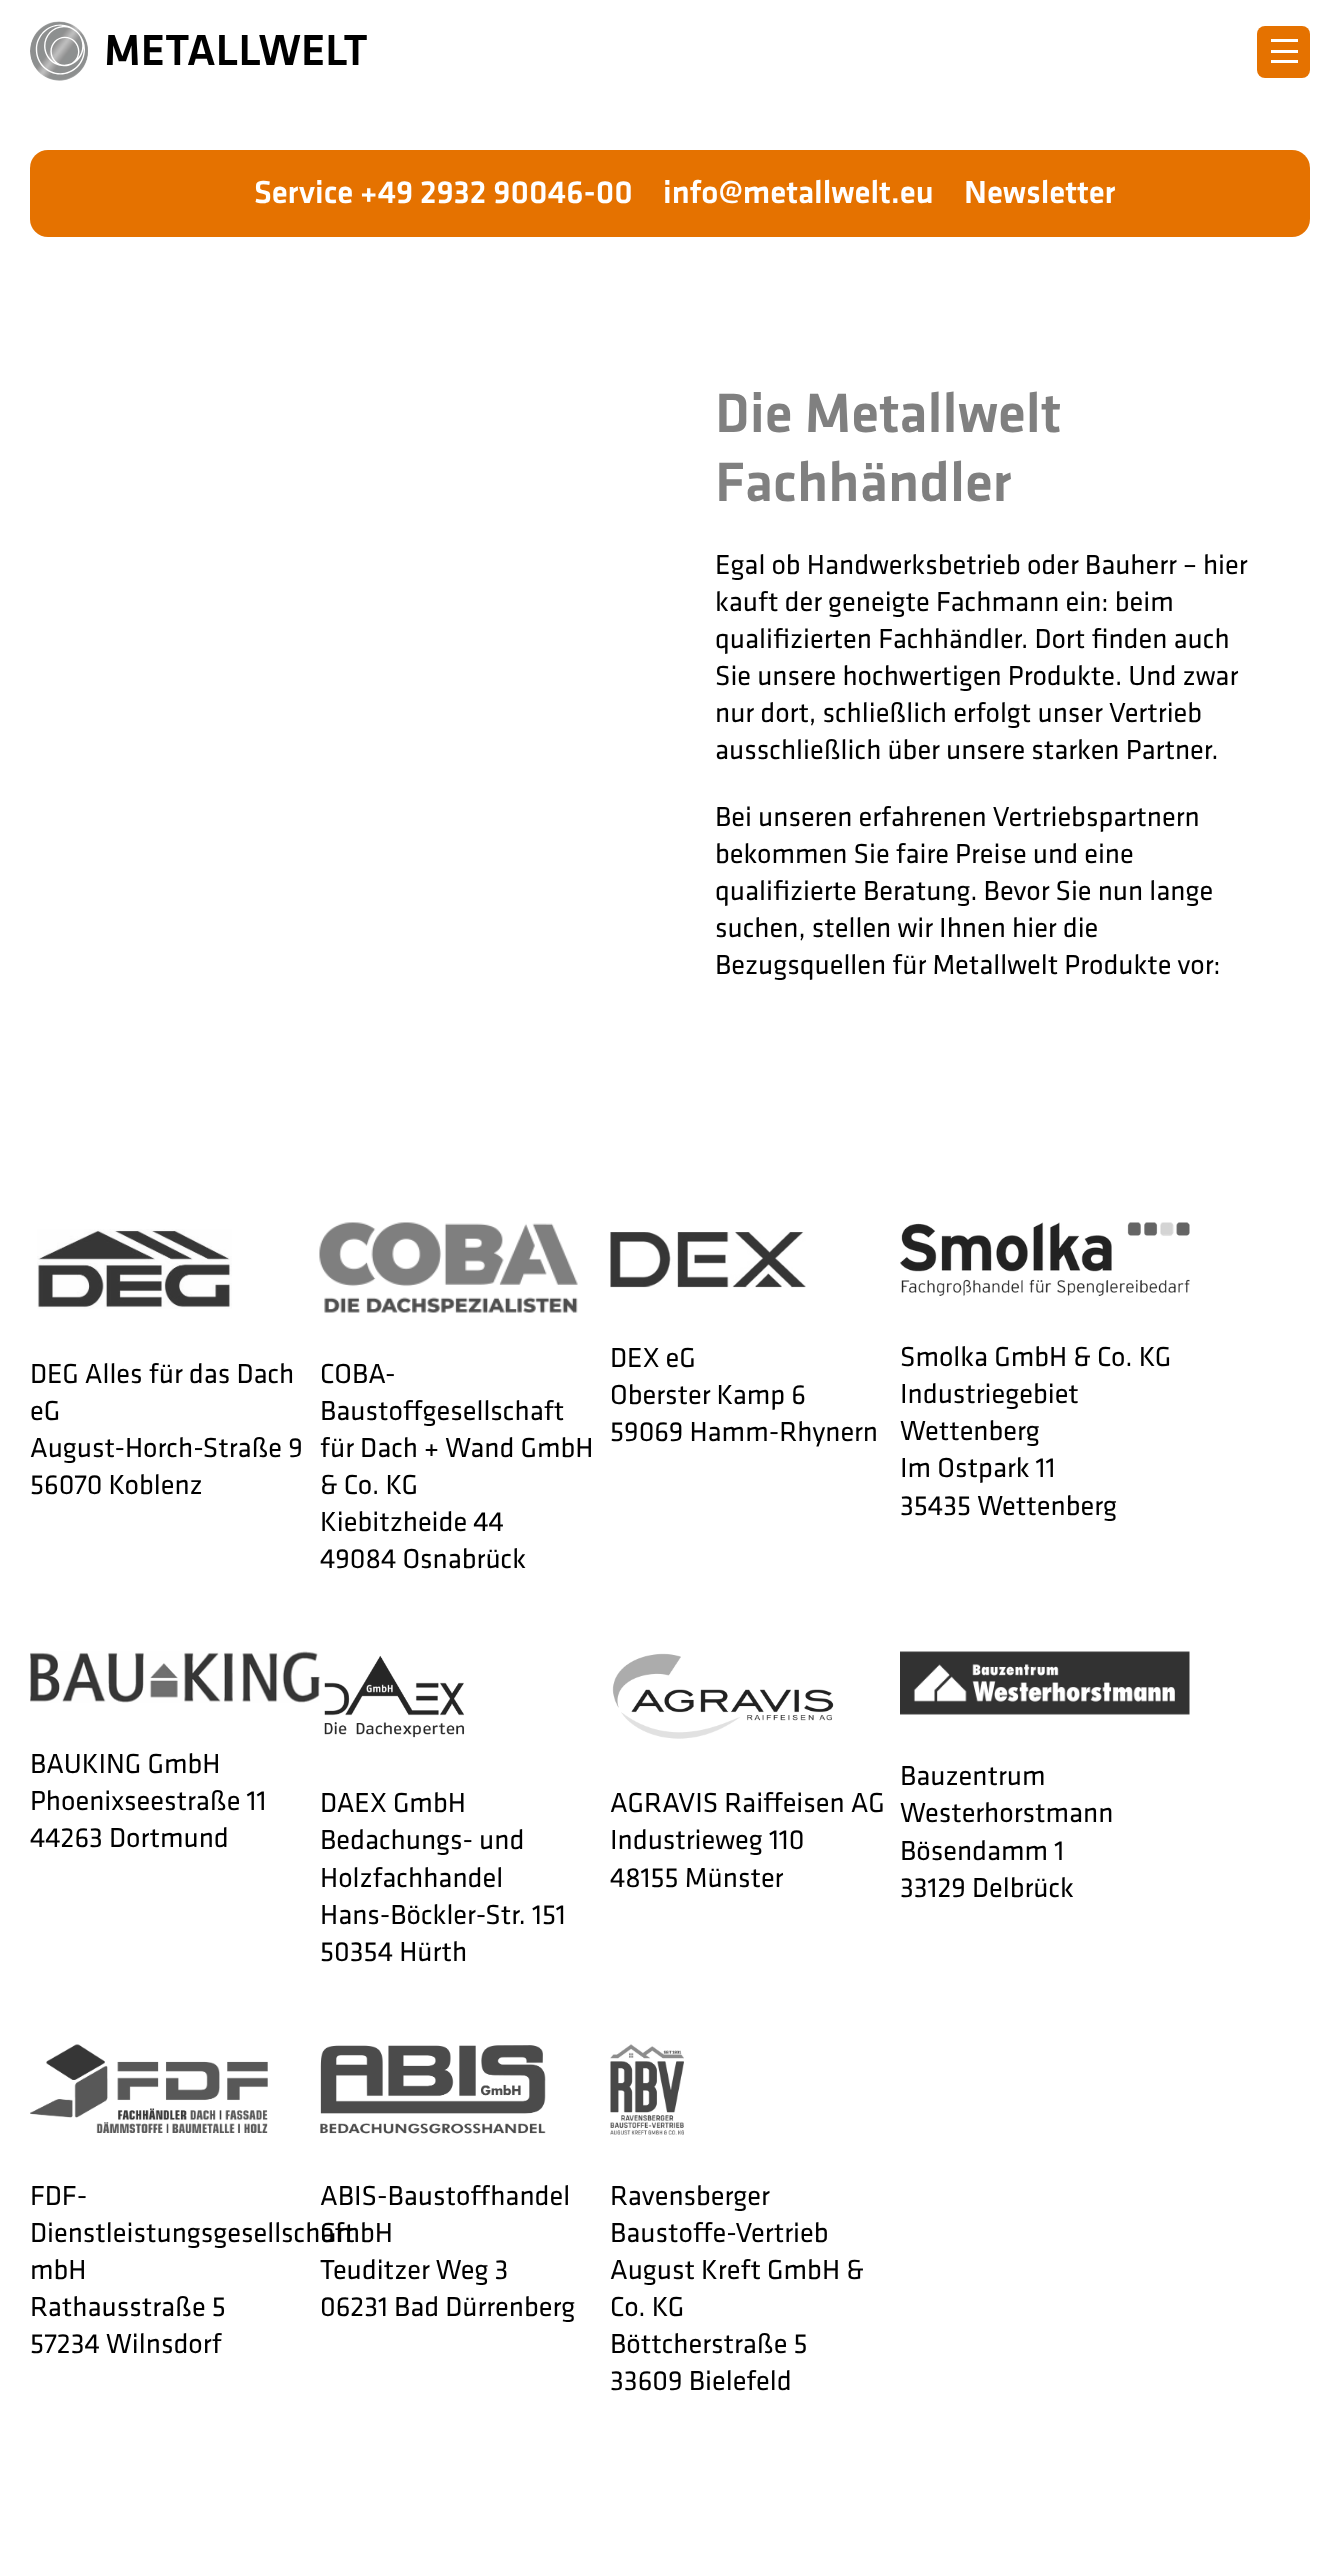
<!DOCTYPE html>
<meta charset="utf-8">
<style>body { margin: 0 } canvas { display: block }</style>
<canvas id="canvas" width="1339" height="2566"></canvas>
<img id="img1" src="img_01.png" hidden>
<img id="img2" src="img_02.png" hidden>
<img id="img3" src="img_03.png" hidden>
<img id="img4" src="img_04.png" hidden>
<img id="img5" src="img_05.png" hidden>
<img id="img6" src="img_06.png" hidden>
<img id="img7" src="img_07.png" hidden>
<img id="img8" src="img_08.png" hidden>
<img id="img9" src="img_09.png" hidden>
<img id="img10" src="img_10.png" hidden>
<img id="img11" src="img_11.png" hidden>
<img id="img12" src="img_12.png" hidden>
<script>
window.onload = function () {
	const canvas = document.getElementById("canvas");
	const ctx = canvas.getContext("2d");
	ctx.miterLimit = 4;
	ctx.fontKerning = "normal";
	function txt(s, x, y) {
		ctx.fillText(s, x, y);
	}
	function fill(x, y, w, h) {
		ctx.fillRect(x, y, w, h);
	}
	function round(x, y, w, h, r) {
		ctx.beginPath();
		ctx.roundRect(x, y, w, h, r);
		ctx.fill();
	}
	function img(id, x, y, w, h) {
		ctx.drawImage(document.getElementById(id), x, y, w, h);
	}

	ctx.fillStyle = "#FFFFFF";
	fill(0, 0, 1339, 2566);
	img("img1", 30, 21, 58, 60);
	ctx.fillStyle = "#E57200";
	round(1257, 26, 53, 52, 8);
	ctx.fillStyle = "#FFFFFF";
	fill(1271, 39, 27, 3);
	fill(1271, 50, 27, 3);
	fill(1271, 60, 27, 3);
	ctx.fillStyle = "#E57200";
	round(30, 150, 1280, 87, 18);
	img("img2", 37, 1229, 195, 80);
	img("img3", 319, 1222, 259, 91);
	img("img4", 610, 1232, 196, 56);
	img("img5", 900, 1222, 290, 74);
	img("img6", 30, 1651, 290, 52);
	img("img7", 324, 1655, 141, 83);
	img("img8", 612, 1653, 222, 86);
	img("img9", 900, 1651, 290, 64);
	img("img10", 30, 2044, 238, 89);
	img("img11", 320, 2045, 226, 89);
	img("img12", 610, 2044, 74, 91);
	ctx.font = "500 45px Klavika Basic";
	ctx.fillStyle = "#000000";
	txt("METALLWELT", 104, 65);
	ctx.font = "500 33px Klavika Basic";
	ctx.fillStyle = "#FFFFFF";
	txt("Service +49 2932 90046-00", 254, 203);
	txt("info@metallwelt.eu", 663, 203);
	txt("Newsletter", 964, 203);
	ctx.font = "500 57.5px Klavika Basic";
	ctx.fillStyle = "#808080";
	txt("Die Metallwelt", 715, 432);
	txt("Fachhändler", 715, 501);
	ctx.font = "28.5px Klavika Basic";
	ctx.fillStyle = "#000000";
	txt("Egal ob Handwerksbetrieb oder Bauherr – hier", 715, 574);
	txt("kauft der geneigte Fachmann ein: beim", 715, 611);
	txt("qualifizierten Fachhändler. Dort finden auch", 715, 648);
	txt("Sie unsere hochwertigen Produkte. Und zwar", 715, 685);
	txt("nur dort, schließlich erfolgt unser Vertrieb", 715, 722);
	txt("ausschließlich über unsere starken Partner.", 715, 759);
	txt("Bei unseren erfahrenen Vertriebspartnern", 715, 826);
	txt("bekommen Sie faire Preise und eine", 715, 863);
	txt("qualifizierte Beratung. Bevor Sie nun lange", 715, 900);
	txt("suchen, stellen wir Ihnen hier die", 715, 937);
	txt("Bezugsquellen für Metallwelt Produkte vor:", 715, 974);
	txt("DEG Alles für das Dach", 30, 1383);
	txt("eG", 30, 1420);
	txt("August-Horch-Straße 9", 30, 1457);
	txt("56070 Koblenz", 30, 1494);
	txt("COBA-", 320, 1383);
	txt("Baustoffgesellschaft", 320, 1420);
	txt("für Dach + Wand GmbH", 320, 1457);
	txt("& Co. KG", 320, 1494);
	txt("Kiebitzheide 44", 320, 1531);
	txt("49084 Osnabrück", 320, 1568);
	txt("DEX eG", 610, 1367);
	txt("Oberster Kamp 6", 610, 1404);
	txt("59069 Hamm-Rhynern", 610, 1441);
	txt("Smolka GmbH & Co. KG", 900, 1366);
	txt("Industriegebiet", 900, 1403);
	txt("Wettenberg", 900, 1440);
	txt("Im Ostpark 11", 900, 1477);
	txt("35435 Wettenberg", 900, 1515);
	txt("BAUKING GmbH", 30, 1773);
	txt("Phoenixseestraße 11", 30, 1810);
	txt("44263 Dortmund", 30, 1847);
	txt("DAEX GmbH", 320, 1812);
	txt("Bedachungs- und", 320, 1849);
	txt("Holzfachhandel", 320, 1887);
	txt("Hans-Böckler-Str. 151", 320, 1924);
	txt("50354 Hürth", 320, 1961);
	txt("AGRAVIS Raiffeisen AG", 610, 1812);
	txt("Industrieweg 110", 610, 1849);
	txt("48155 Münster", 610, 1887);
	txt("Bauzentrum", 900, 1785);
	txt("Westerhorstmann", 900, 1822);
	txt("Bösendamm 1", 900, 1860);
	txt("33129 Delbrück", 900, 1897);
	txt("FDF-", 30, 2205);
	txt("Dienstleistungsgesellschaft", 30, 2242);
	txt("mbH", 30, 2279);
	txt("Rathausstraße 5", 30, 2316);
	txt("57234 Wilnsdorf", 30, 2353);
	txt("ABIS-Baustoffhandel", 320, 2205);
	txt("GmbH", 320, 2242);
	txt("Teuditzer Weg 3", 320, 2279);
	txt("06231 Bad Dürrenberg", 320, 2316);
	txt("Ravensberger", 610, 2205);
	txt("Baustoffe-Vertrieb", 610, 2242);
	txt("August Kreft GmbH &", 610, 2279);
	txt("Co. KG", 610, 2316);
	txt("Böttcherstraße 5", 610, 2353);
	txt("33609 Bielefeld", 610, 2390);
};
</script>
